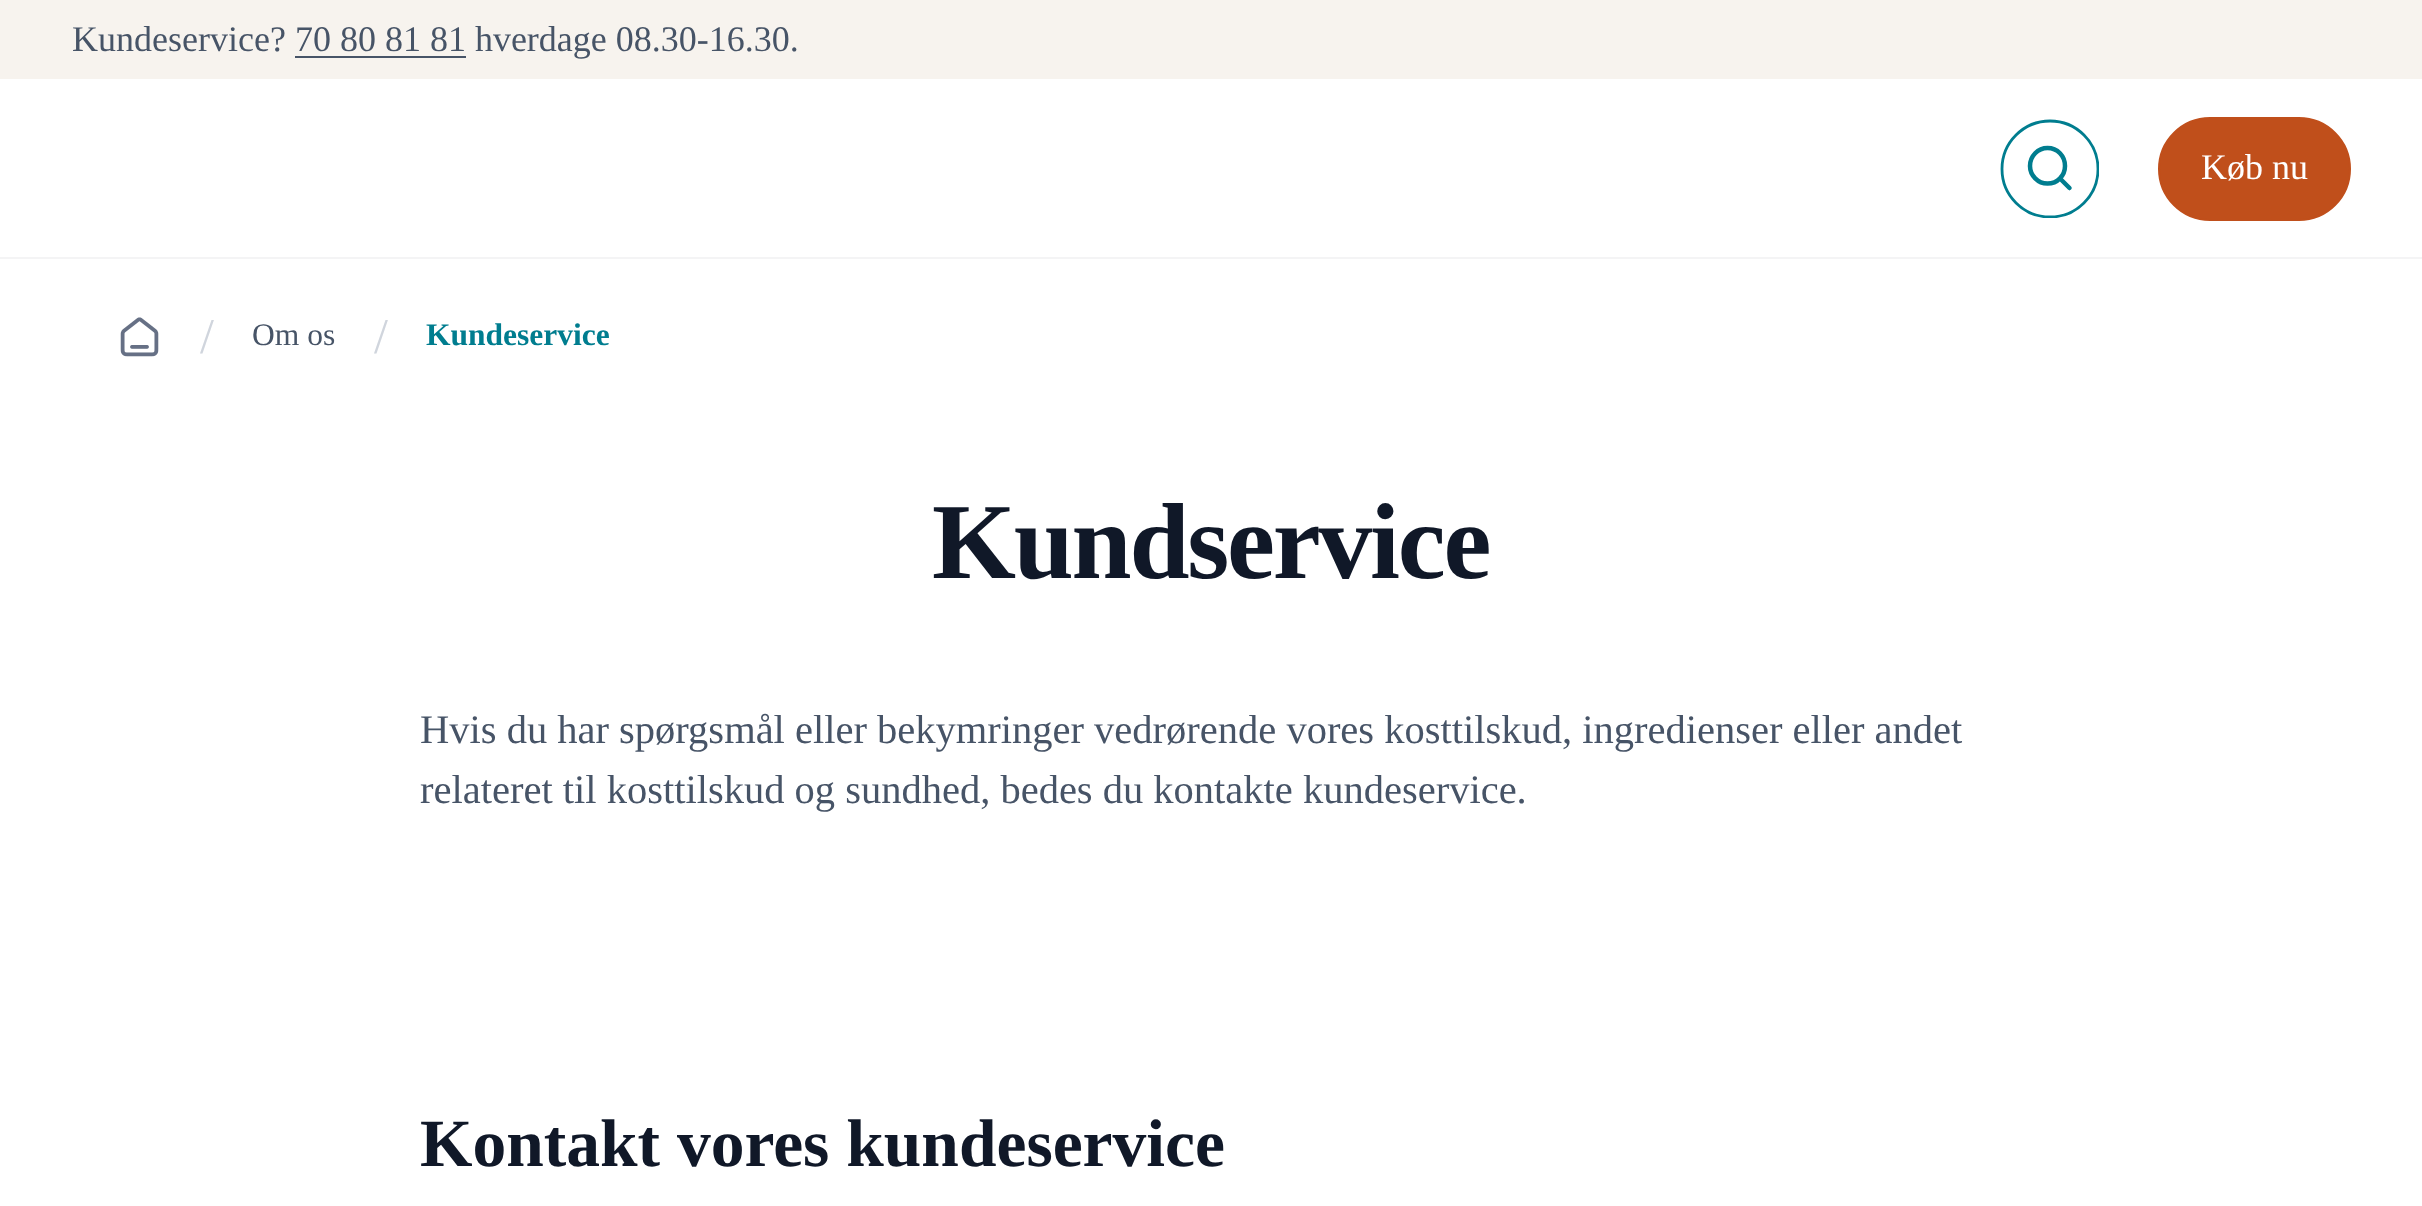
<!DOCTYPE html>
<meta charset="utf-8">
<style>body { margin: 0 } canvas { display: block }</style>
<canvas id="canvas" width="2422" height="1206"></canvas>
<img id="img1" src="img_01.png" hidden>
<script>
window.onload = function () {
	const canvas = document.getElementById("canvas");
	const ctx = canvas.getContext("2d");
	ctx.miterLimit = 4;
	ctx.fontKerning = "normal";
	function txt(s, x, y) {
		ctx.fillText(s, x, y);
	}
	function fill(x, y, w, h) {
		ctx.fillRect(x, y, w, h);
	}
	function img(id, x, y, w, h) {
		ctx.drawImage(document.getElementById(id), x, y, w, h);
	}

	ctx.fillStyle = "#FFFFFF";
	fill(0, 0, 2422, 1206);
	ctx.fillStyle = "#F7F3EE";
	fill(0, 0, 2422, 79);
	ctx.fillStyle = "#475467";
	fill(295, 56, 171, 2);
	ctx.fillStyle = "#F4F4F5";
	fill(0, 257, 2422, 2);
	ctx.save();
	ctx.beginPath();
	ctx.rect(2000, 119, 99, 99);
	ctx.clip();
	ctx.beginPath();
	ctx.arc(2050, 169, 48, 0, Math.PI * 2);
	ctx.strokeStyle = "#007D8F";
	ctx.lineWidth = 2.8;
	ctx.stroke();
	ctx.restore();
	ctx.beginPath();
	ctx.moveTo(2047.5, 183.5);
	ctx.bezierCurveTo(2057.5, 183.5, 2065, 175.5, 2065, 166);
	ctx.bezierCurveTo(2065, 156, 2057.5, 148, 2047.5, 148);
	ctx.bezierCurveTo(2038, 148, 2030, 156, 2030, 166);
	ctx.bezierCurveTo(2030, 175.5, 2038, 183.5, 2047.5, 183.5);
	ctx.closePath();
	ctx.moveTo(2069.5, 188);
	ctx.lineTo(2060, 178.5);
	ctx.strokeStyle = "#007D8F";
	ctx.lineWidth = 4.5;
	ctx.lineCap = "round";
	ctx.lineJoin = "round";
	ctx.stroke();
	ctx.fillStyle = "#C04F1B";
	ctx.beginPath();
	ctx.roundRect(2159, 118, 191, 102, 51);
	ctx.fill();
	ctx.strokeStyle = "#C04F1B";
	ctx.lineWidth = 2;
	ctx.lineJoin = "miter";
	ctx.stroke();
	img("img1", 120, 317, 39, 40);
	ctx.font = "36px Liberation Serif";
	ctx.fillStyle = "#475467";
	txt("Kundeservice? 70 80 81 81 hverdage 08.30-16.30.", 72, 51);
	ctx.fillStyle = "#FFFFFF";
	txt("Køb nu", 2201, 179);
	ctx.font = "50px Liberation Serif";
	ctx.fillStyle = "#D0D5DD";
	txt("/", 200, 353);
	ctx.font = "31.5px Liberation Serif";
	ctx.fillStyle = "#475467";
	txt("Om os", 252, 345);
	ctx.font = "50px Liberation Serif";
	ctx.fillStyle = "#D0D5DD";
	txt("/", 374, 353);
	ctx.font = "bold 31.5px Liberation Serif";
	ctx.fillStyle = "#007D8F";
	txt("Kundeservice", 426, 345);
	ctx.letterSpacing = "-2.25px";
	ctx.font = "bold 108px Liberation Serif";
	ctx.fillStyle = "#101828";
	txt("Kundservice", 932, 578);
	ctx.letterSpacing = "0px";
	ctx.font = "40.5px Liberation Serif";
	ctx.fillStyle = "#475467";
	txt("Hvis du har spørgsmål eller bekymringer vedrørende vores kosttilskud, ingredienser eller andet", 420, 743);
	txt("relateret til kosttilskud og sundhed, bedes du kontakte kundeservice.", 420, 803);
	ctx.font = "bold 67.5px Liberation Serif";
	ctx.fillStyle = "#101828";
	txt("Kontakt vores kundeservice", 420, 1166);
};
</script>
